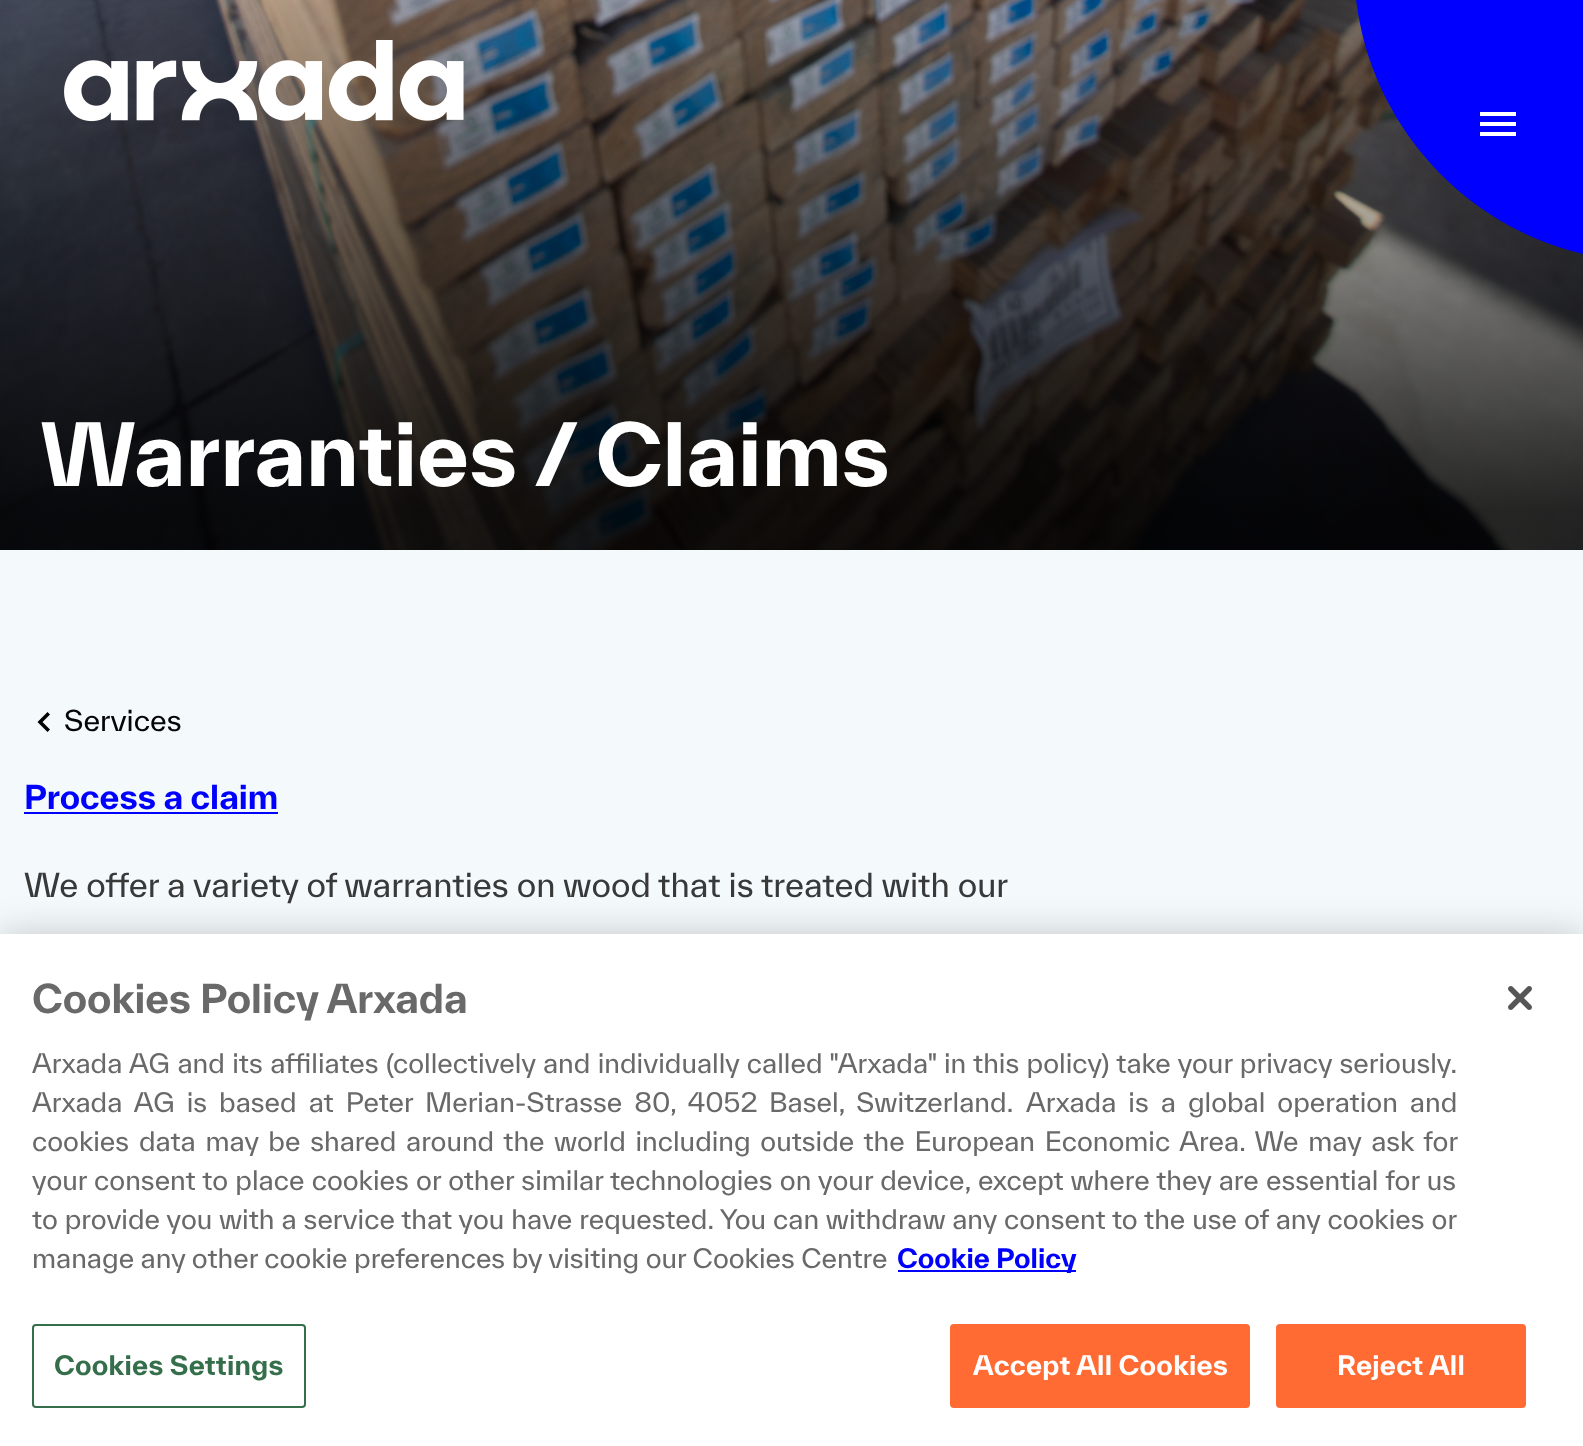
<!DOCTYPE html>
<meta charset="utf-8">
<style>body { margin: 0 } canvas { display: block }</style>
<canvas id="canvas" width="1583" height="1446"></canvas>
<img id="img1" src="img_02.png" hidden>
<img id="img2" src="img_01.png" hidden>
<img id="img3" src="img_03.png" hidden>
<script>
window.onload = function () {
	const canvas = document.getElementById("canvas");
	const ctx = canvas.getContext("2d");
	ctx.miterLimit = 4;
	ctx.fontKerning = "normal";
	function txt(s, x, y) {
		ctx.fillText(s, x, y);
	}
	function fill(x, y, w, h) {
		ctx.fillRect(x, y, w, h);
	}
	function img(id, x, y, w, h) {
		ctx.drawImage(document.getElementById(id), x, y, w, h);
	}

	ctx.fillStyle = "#F4F9FC";
	fill(0, 0, 1583, 1446);
	img("img1", 0, 0, 1583, 550);
	img("img2", 64, 40, 400, 82);
	ctx.fillStyle = "#0000FF";
	ctx.beginPath();
	ctx.moveTo(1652, -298);
	ctx.lineTo(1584, -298);
	ctx.lineTo(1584, 262);
	ctx.lineTo(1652, 262);
	ctx.bezierCurveTo(1487.5, 262, 1354, 128.5, 1354, -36);
	ctx.lineTo(1354, 0);
	ctx.bezierCurveTo(1354, -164.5, 1487.5, -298, 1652, -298);
	ctx.closePath();
	ctx.fill();
	ctx.fillStyle = "#FFFFFF";
	ctx.beginPath();
	ctx.moveTo(1480, 136);
	ctx.lineTo(1516, 136);
	ctx.lineTo(1516, 132);
	ctx.lineTo(1480, 132);
	ctx.closePath();
	ctx.moveTo(1480, 126);
	ctx.lineTo(1516, 126);
	ctx.lineTo(1516, 122);
	ctx.lineTo(1480, 122);
	ctx.closePath();
	ctx.moveTo(1480, 112);
	ctx.lineTo(1480, 116);
	ctx.lineTo(1516, 116);
	ctx.lineTo(1516, 112);
	ctx.closePath();
	ctx.fill();
	ctx.fillStyle = "#000000";
	ctx.beginPath();
	ctx.moveTo(50, 714.5);
	ctx.lineTo(47.5, 712);
	ctx.lineTo(37.5, 722);
	ctx.lineTo(47.5, 732);
	ctx.lineTo(50, 729.5);
	ctx.lineTo(42.5, 722);
	ctx.closePath();
	ctx.fill();
	ctx.fillStyle = "#0000FF";
	fill(24, 812, 254, 2);
	ctx.fillStyle = "rgba(0, 0, 0, 0.2)";
	ctx.filter = "blur(18px)";
	ctx.beginPath();
	ctx.rect(0, 934, 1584, 512);
	ctx.fill();
	ctx.filter = "none";
	ctx.fillStyle = "#FFFFFF";
	fill(0, 934, 1583, 512);
	ctx.fillStyle = "#0000FF";
	fill(898, 1270, 178, 2);
	ctx.beginPath();
	ctx.roundRect(33, 1325, 272, 82, 3);
	ctx.strokeStyle = "#346E4A";
	ctx.lineWidth = 2;
	ctx.stroke();
	ctx.fillStyle = "#FF6B33";
	ctx.beginPath();
	ctx.roundRect(951, 1325, 298, 82, 3);
	ctx.fill();
	ctx.strokeStyle = "#FF6B33";
	ctx.stroke();
	ctx.beginPath();
	ctx.roundRect(1277, 1325, 248, 82, 3);
	ctx.fill();
	ctx.stroke();
	img("img3", 1508, 986, 24, 24);
	ctx.font = "bold 84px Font";
	ctx.fillStyle = "#FFFFFF";
	txt("Warranties / Claims", 40, 486);
	ctx.font = "28px Font";
	ctx.fillStyle = "#040506";
	txt("Services", 64, 731);
	ctx.font = "bold 32px Font";
	ctx.fillStyle = "#0000FF";
	txt("Process a claim", 24, 809);
	ctx.font = "32px Font";
	ctx.fillStyle = "#383939";
	txt("We offer a variety of warranties on wood that is treated with our", 24, 897);
	ctx.font = "bold 38.4px Font";
	ctx.fillStyle = "#696969";
	txt("Cookies Policy Arxada", 32, 1013);
	ctx.wordSpacing = "0.9px";
	ctx.font = "26.02px Font";
	txt("Arxada AG and its affiliates (collectively and individually called \"Arxada\" in this policy) take your privacy seriously.", 32, 1073);
	ctx.wordSpacing = "5.5px";
	txt("Arxada AG is based at Peter Merian-Strasse 80", 32, 1112);
	ctx.wordSpacing = "5px";
	txt(", 4052 Basel, Switzerland.", 670, 1112);
	ctx.wordSpacing = "5.5px";
	txt("Arxada is a global operation and", 1026, 1112);
	ctx.wordSpacing = "3.25px";
	txt("cookies data may be shared around the world including outside the European Economic Area. We may ask for", 32, 1151);
	ctx.wordSpacing = "0.75px";
	txt("your consent to place cookies or other similar technologies on your device, except where they are essential for us", 32, 1190);
	ctx.wordSpacing = "0.5px";
	txt("to provide you with a service that you have requested.", 32, 1229);
	txt("You can withdraw any consent to the use of any cookies or", 720, 1229);
	ctx.wordSpacing = "0px";
	txt("manage any other cookie preferences by visiting our Cookies Centre", 32, 1268);
	ctx.font = "bold 26.02px Font";
	ctx.fillStyle = "#0000FF";
	txt("Cookie Policy", 897, 1268);
	ctx.letterSpacing = "0.25px";
	ctx.fillStyle = "#346E4A";
	txt("Cookies Settings", 54, 1375);
	ctx.fillStyle = "#FFFFFF";
	txt("Accept All Cookies", 973, 1375);
	txt("Reject All", 1337, 1375);
};
</script>
